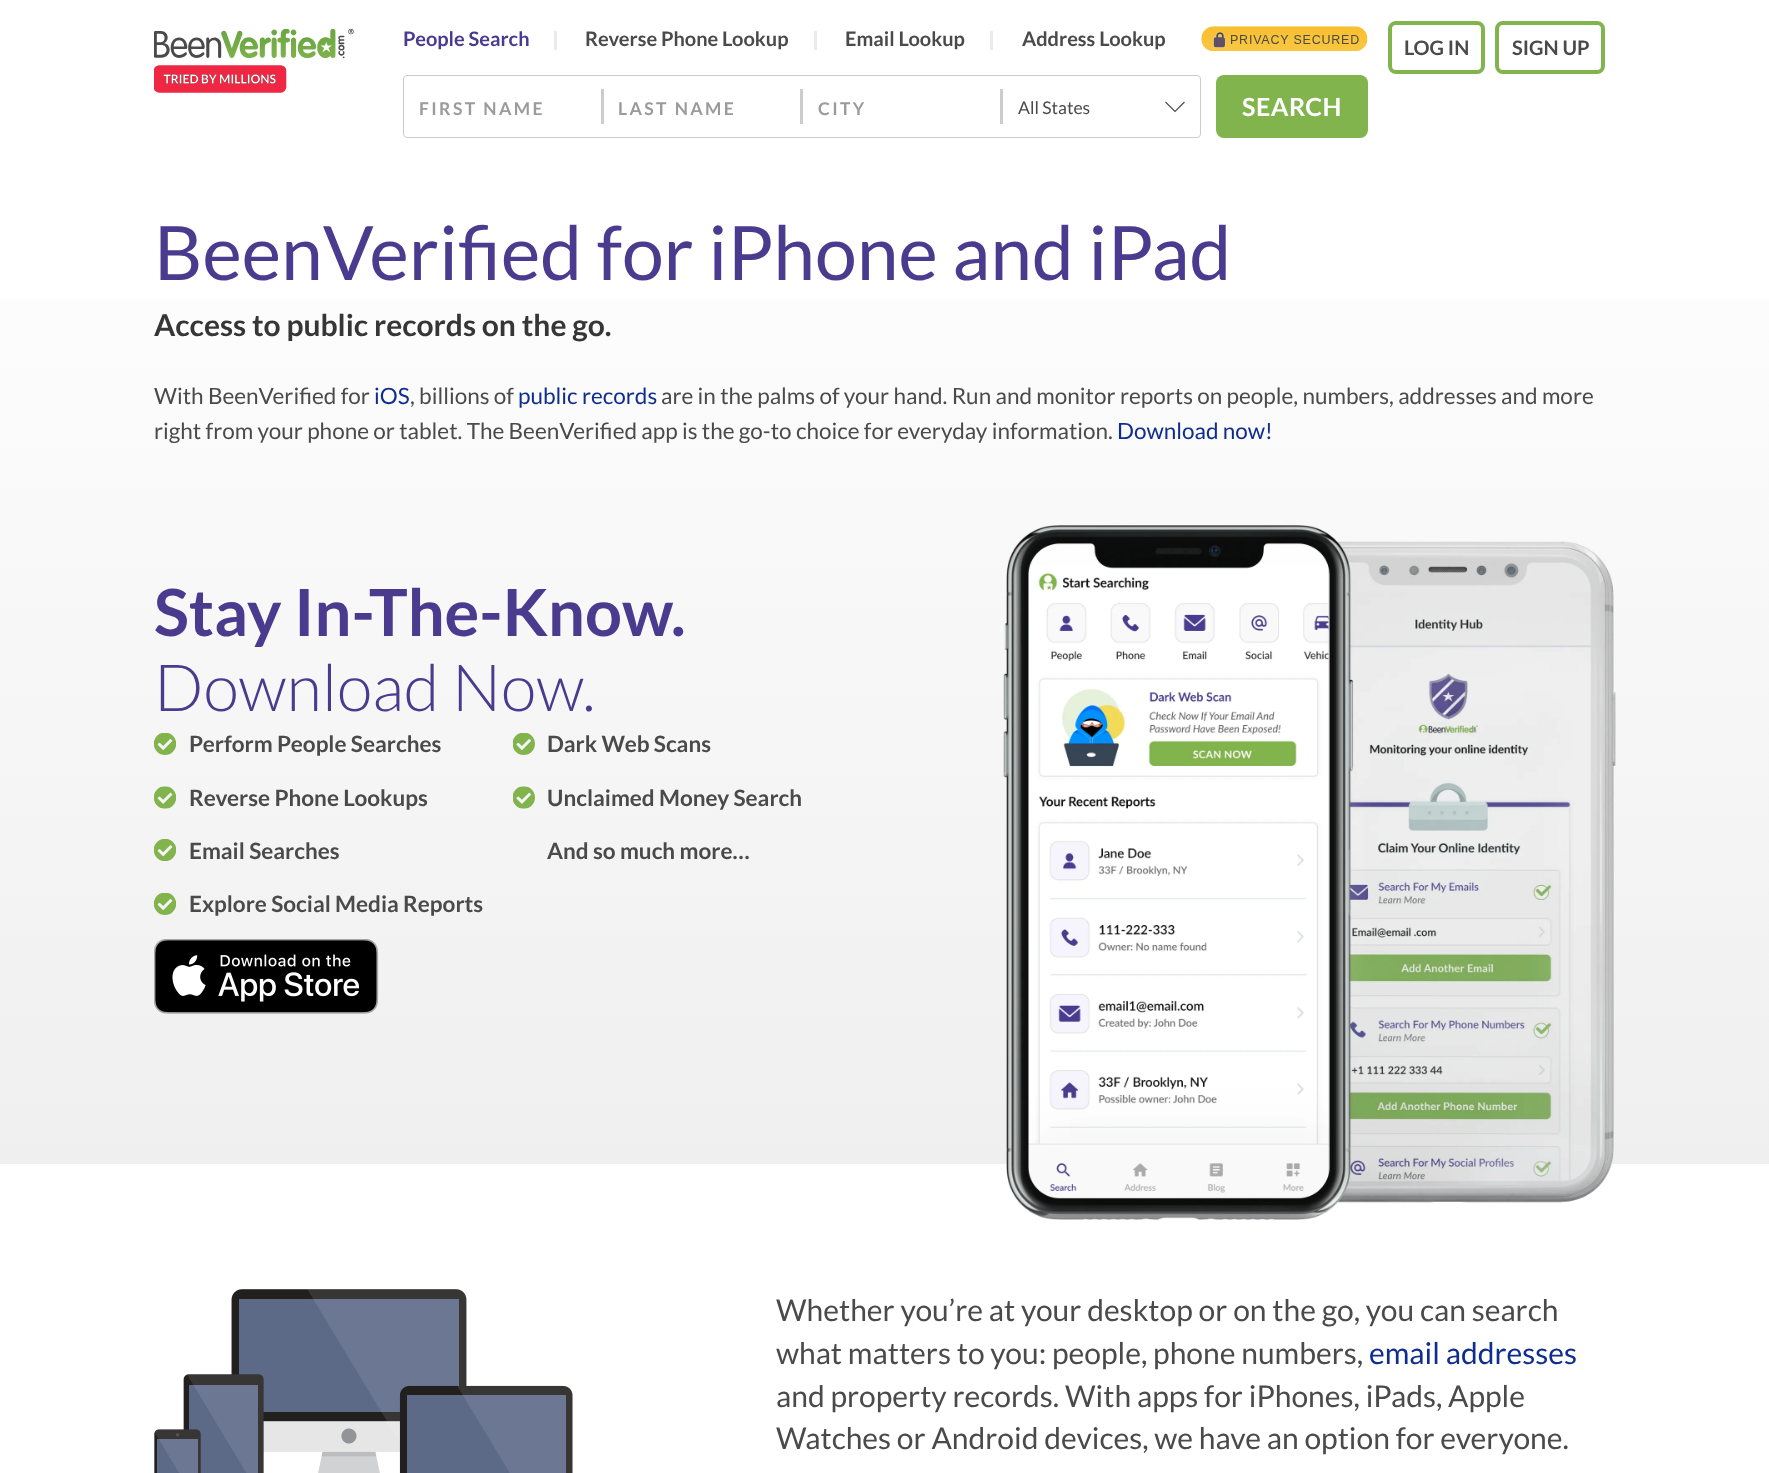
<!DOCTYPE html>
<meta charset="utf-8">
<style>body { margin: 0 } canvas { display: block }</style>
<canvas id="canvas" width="1769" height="1473"></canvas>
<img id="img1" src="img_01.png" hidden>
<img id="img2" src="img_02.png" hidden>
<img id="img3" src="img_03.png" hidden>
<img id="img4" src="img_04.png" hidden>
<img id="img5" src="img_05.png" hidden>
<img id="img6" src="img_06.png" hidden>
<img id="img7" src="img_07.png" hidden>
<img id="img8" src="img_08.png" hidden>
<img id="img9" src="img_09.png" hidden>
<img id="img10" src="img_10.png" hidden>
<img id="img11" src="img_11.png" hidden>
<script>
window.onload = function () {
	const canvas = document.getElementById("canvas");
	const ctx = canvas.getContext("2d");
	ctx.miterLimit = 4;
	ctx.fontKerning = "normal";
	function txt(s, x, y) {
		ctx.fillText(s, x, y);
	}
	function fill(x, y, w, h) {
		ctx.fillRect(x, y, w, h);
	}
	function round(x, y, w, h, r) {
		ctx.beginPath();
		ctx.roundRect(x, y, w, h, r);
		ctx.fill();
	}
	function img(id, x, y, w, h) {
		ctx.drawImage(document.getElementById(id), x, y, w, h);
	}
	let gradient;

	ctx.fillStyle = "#FFFFFF";
	fill(0, 0, 1769, 1473);
	img("img1", 154, 29, 200, 64);
	ctx.fillStyle = "#EDEAEA";
	fill(554, 31, 3, 19);
	fill(814, 31, 3, 19);
	fill(990, 31, 3, 19);
	img("img2", 1201, 26, 167, 25);
	ctx.beginPath();
	ctx.roundRect(403.5, 75.5, 797, 62, 3.5);
	ctx.strokeStyle = "#CCCCCC";
	ctx.stroke();
	ctx.fillStyle = "#CCCCCC";
	fill(601, 89, 3, 35);
	fill(800, 89, 3, 35);
	fill(1000, 89, 3, 35);
	ctx.beginPath();
	ctx.moveTo(1184.5, 102);
	ctx.lineTo(1175, 111.5);
	ctx.lineTo(1165.5, 102);
	ctx.strokeStyle = "#4A4A4A";
	ctx.lineWidth = 1.1;
	ctx.stroke();
	ctx.fillStyle = "#81B44C";
	round(1216, 75, 152, 63, 8);
	ctx.beginPath();
	ctx.roundRect(1390, 23, 93, 49, 6);
	ctx.strokeStyle = "#81B44C";
	ctx.lineWidth = 4;
	ctx.stroke();
	ctx.beginPath();
	ctx.roundRect(1497, 23, 106, 49, 6);
	ctx.stroke();
	gradient = ctx.createLinearGradient(885, 1179, 885, 135);
	gradient.addColorStop(0, "#EFEFEF");
	gradient.addColorStop(1, "#FFFFFF");
	ctx.fillStyle = gradient;
	fill(0, 298, 1769, 866);
	img("img3", 154, 733, 22, 22);
	img("img4", 513, 733, 22, 22);
	img("img5", 154, 786, 22, 23);
	img("img6", 513, 786, 22, 23);
	img("img7", 154, 839, 22, 22);
	img("img8", 154, 893, 22, 22);
	img("img9", 154, 939, 225, 75);
	img("img10", 1003, 525, 613, 695);
	img("img11", 154, 1289, 419, 184);
	ctx.font = "bold 20px Lato";
	ctx.fillStyle = "#4A3B8F";
	txt("People Search", 403, 46);
	ctx.fillStyle = "#4A4A4A";
	txt("Reverse Phone Lookup", 585, 46);
	txt("Email Lookup", 845, 46);
	txt("Address Lookup", 1022, 46);
	ctx.letterSpacing = "2.4px";
	ctx.font = "bold 17.5px Lato";
	ctx.fillStyle = "#9B9B9B";
	txt("FIRST NAME", 419, 115);
	txt("LAST NAME", 618, 115);
	txt("CITY", 818, 115);
	ctx.letterSpacing = "0px";
	ctx.font = "17.5px Lato";
	ctx.fillStyle = "#4A4A4A";
	txt("All States", 1018, 114);
	ctx.letterSpacing = "0.5px";
	ctx.font = "bold 25px Lato";
	ctx.fillStyle = "#FFFFFF";
	txt("SEARCH", 1242, 116);
	ctx.letterSpacing = "0px";
	ctx.font = "bold 20px Lato";
	ctx.fillStyle = "#4A4A4A";
	txt("LOG IN", 1404, 55);
	txt("SIGN UP", 1512, 55);
	ctx.font = "75px Lato";
	ctx.fillStyle = "#4A3B8F";
	txt("BeenVerified for iPhone and iPad", 154, 280);
	ctx.font = "bold 30px Lato";
	ctx.fillStyle = "#363636";
	txt("Access to public records on the go.", 154, 336);
	ctx.font = "22.5px Lato";
	ctx.fillStyle = "#4A4A4A";
	txt("With BeenVerified for", 154, 404);
	ctx.fillStyle = "#0F2D8F";
	txt("iOS", 374, 404);
	ctx.fillStyle = "#4A4A4A";
	txt(", billions of", 410, 404);
	ctx.fillStyle = "#0F2D8F";
	txt("public records", 518, 404);
	ctx.fillStyle = "#4A4A4A";
	txt("are in the palms of your hand. Run and monitor reports on people, numbers, addresses and more", 661, 404);
	txt("right from your phone or tablet. The BeenVerified app is the go-to choice for everyday information.", 154, 439);
	ctx.fillStyle = "#0F2D8F";
	txt("Download now!", 1117, 439);
	ctx.font = "bold 65px Lato";
	ctx.fillStyle = "#4A3B8F";
	txt("Stay In-The-Know.", 154, 636);
	ctx.font = "300 65px Lato";
	txt("Download Now.", 154, 711);
	ctx.font = "bold 22.5px Lato";
	ctx.fillStyle = "#4A4A4A";
	txt("Perform People Searches", 189, 752);
	txt("Dark Web Scans", 547, 752);
	txt("Reverse Phone Lookups", 189, 806);
	txt("Unclaimed Money Search", 547, 806);
	txt("Email Searches", 189, 859);
	txt("And so much more…", 547, 859);
	txt("Explore Social Media Reports", 189, 912);
	ctx.font = "30px Lato";
	txt("Whether you’re at your desktop or on the go, you can search", 776, 1321);
	txt("what matters to you: people, phone numbers,", 776, 1364);
	ctx.fillStyle = "#0F2D8F";
	txt("email addresses", 1369, 1364);
	ctx.fillStyle = "#4A4A4A";
	txt("and property records. With apps for iPhones, iPads, Apple", 776, 1407);
	txt("Watches or Android devices, we have an option for everyone.", 776, 1449);
};
</script>
